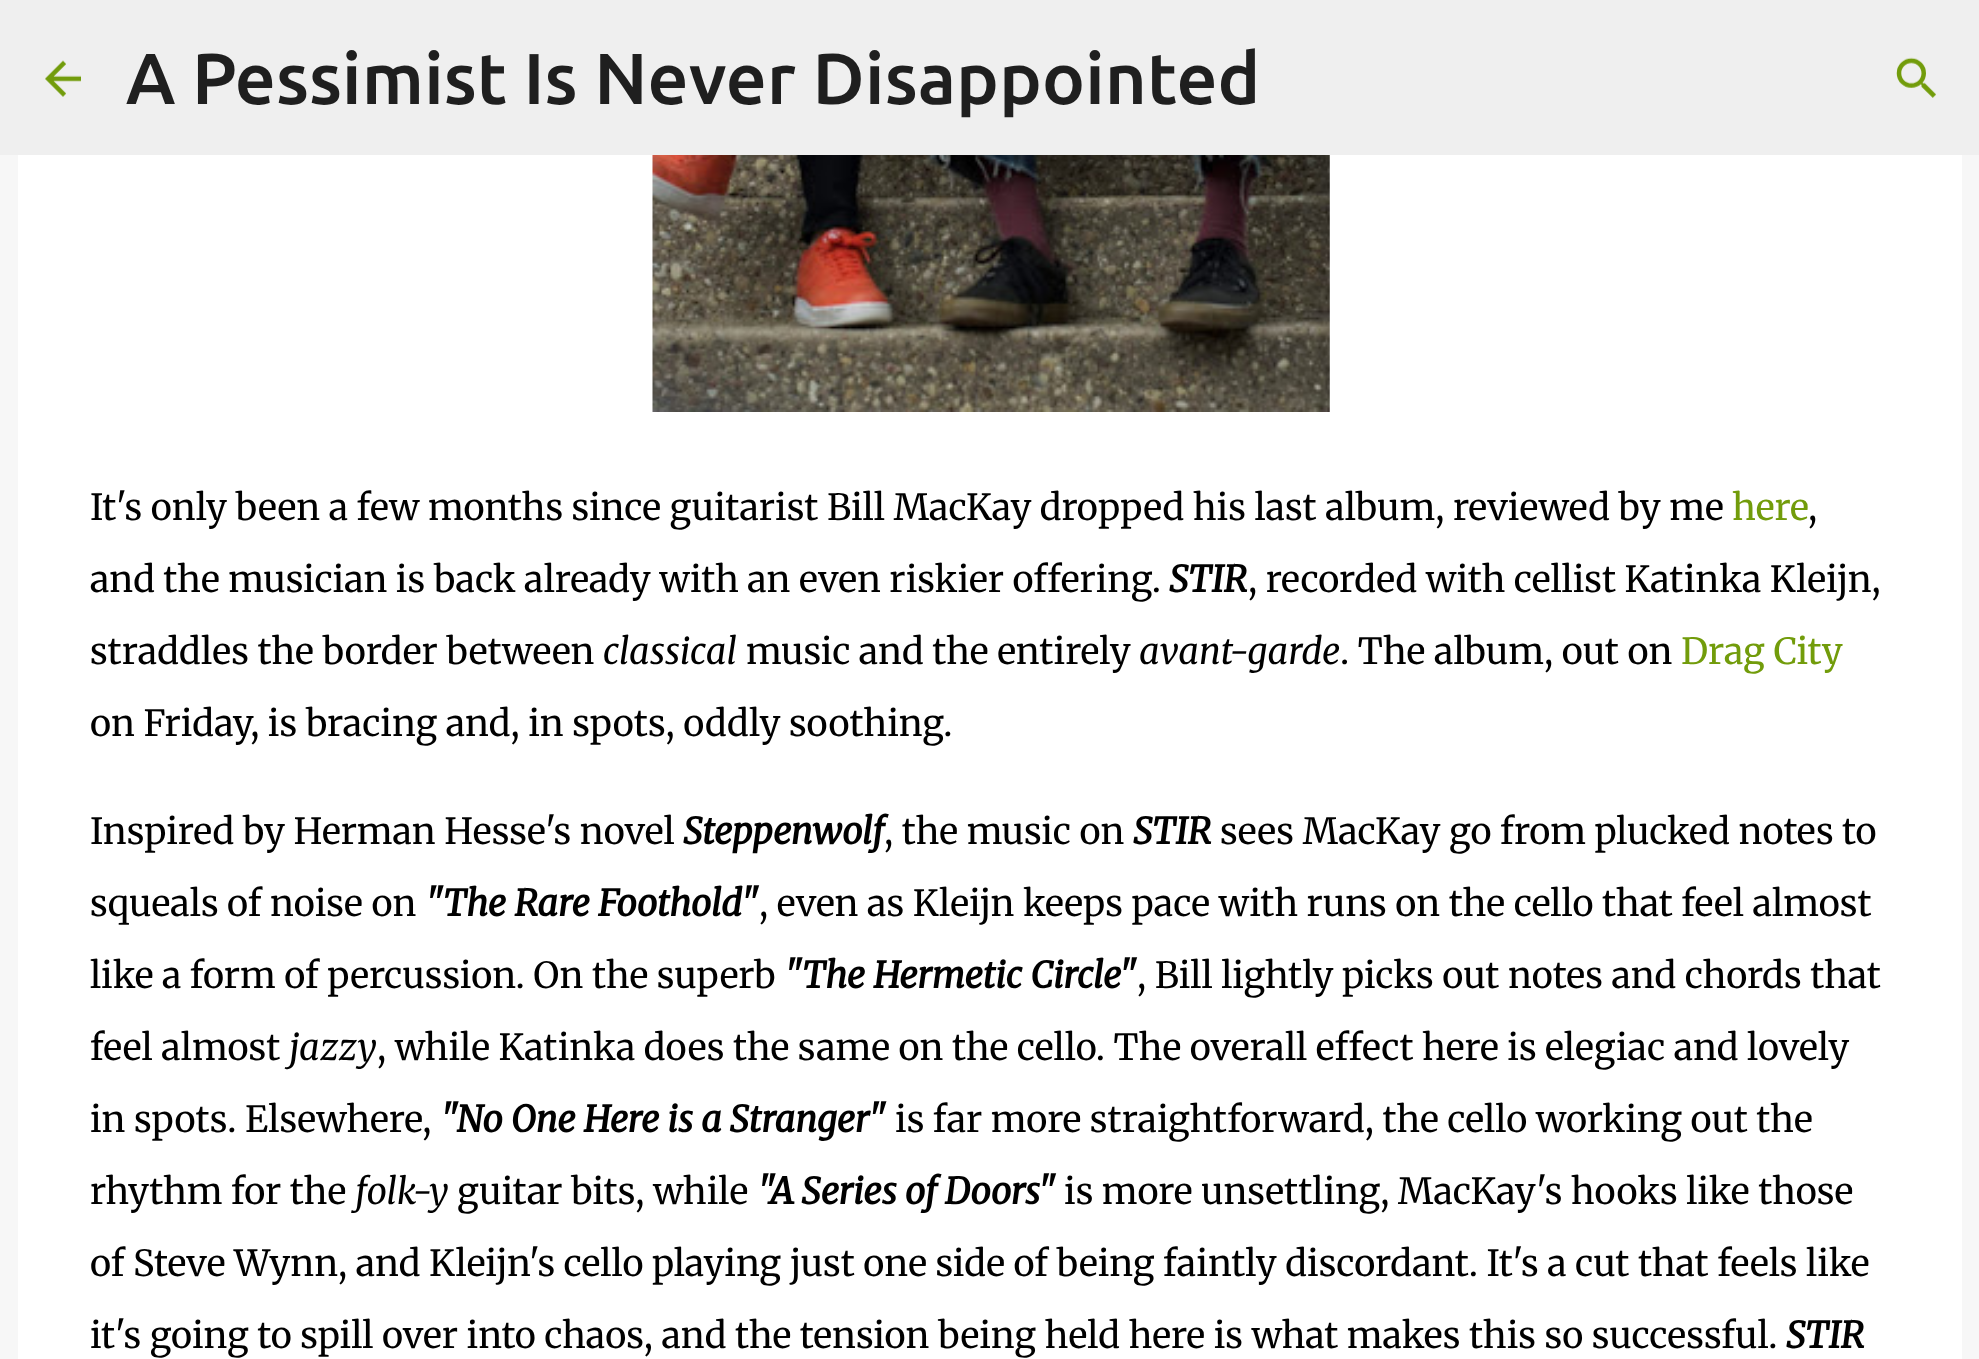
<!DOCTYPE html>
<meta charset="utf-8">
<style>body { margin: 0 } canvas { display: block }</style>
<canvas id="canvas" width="1979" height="1359"></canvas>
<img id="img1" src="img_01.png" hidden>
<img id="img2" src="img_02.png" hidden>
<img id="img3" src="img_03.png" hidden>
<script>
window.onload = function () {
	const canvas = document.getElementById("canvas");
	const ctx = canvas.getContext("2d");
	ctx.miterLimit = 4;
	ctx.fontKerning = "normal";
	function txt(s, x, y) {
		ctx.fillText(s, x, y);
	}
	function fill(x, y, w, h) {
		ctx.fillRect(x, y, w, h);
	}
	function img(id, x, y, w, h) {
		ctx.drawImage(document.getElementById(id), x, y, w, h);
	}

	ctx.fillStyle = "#F7F7F7";
	fill(0, 0, 1979, 1359);
	ctx.fillStyle = "#EFEFEF";
	fill(0, 0, 1979, 155);
	img("img1", 45, 60, 36, 37);
	img("img2", 1896, 57, 40, 41);
	ctx.fillStyle = "#FFFFFF";
	fill(18, 155, 1944, 1204);
	img("img3", 652, 155, 678, 257);
	ctx.font = "500 72px Ubuntu";
	ctx.fillStyle = "#1F1F1F";
	txt("A Pessimist Is Never Disappointed", 126, 104);
	ctx.font = "300 36px Merriweather";
	ctx.fillStyle = "#000000";
	txt("It's only been a few months since guitarist Bill MacKay dropped his last album, reviewed by me", 90, 520);
	ctx.fillStyle = "#729C0B";
	txt("here", 1732, 520);
	ctx.fillStyle = "#000000";
	txt(",", 1808, 520);
	txt("and the musician is back already with an even riskier offering.", 90, 592);
	ctx.font = "italic bold 36px Merriweather";
	txt("STIR", 1169, 592);
	ctx.font = "300 36px Merriweather";
	txt(", recorded with cellist Katinka Kleijn,", 1248, 592);
	txt("straddles the border between", 90, 664);
	ctx.font = "italic 36px Merriweather";
	txt("classical", 603, 664);
	ctx.font = "300 36px Merriweather";
	txt("music and the entirely", 746, 664);
	ctx.font = "italic 36px Merriweather";
	txt("avant-garde", 1139, 664);
	ctx.font = "300 36px Merriweather";
	txt(". The album, out on", 1340, 664);
	ctx.fillStyle = "#729C0B";
	txt("Drag City", 1681, 664);
	ctx.fillStyle = "#000000";
	txt("on Friday, is bracing and, in spots, oddly soothing.", 90, 736);
	txt("Inspired by Herman Hesse's novel", 90, 844);
	ctx.font = "italic bold 36px Merriweather";
	txt("Steppenwolf", 683, 844);
	ctx.font = "300 36px Merriweather";
	txt(", the music on", 884, 844);
	ctx.font = "italic bold 36px Merriweather";
	txt("STIR", 1133, 844);
	ctx.font = "300 36px Merriweather";
	txt("sees MacKay go from plucked notes to", 1220, 844);
	txt("squeals of noise on", 90, 916);
	ctx.font = "italic bold 36px Merriweather";
	txt("\"The Rare Foothold\"", 425, 916);
	ctx.font = "300 36px Merriweather";
	txt(", even as Kleijn keeps pace with runs on the cello that feel almost", 759, 916);
	txt("like a form of percussion. On the superb", 90, 988);
	ctx.font = "italic bold 36px Merriweather";
	txt("\"The Hermetic Circle\"", 784, 988);
	ctx.font = "300 36px Merriweather";
	txt(", Bill lightly picks out notes and chords that", 1137, 988);
	txt("feel almost", 90, 1060);
	ctx.font = "italic 36px Merriweather";
	txt("jazzy", 289, 1060);
	ctx.font = "300 36px Merriweather";
	txt(", while Katinka does the same on the cello. The overall effect here is elegiac and lovely", 377, 1060);
	txt("in spots. Elsewhere,", 90, 1132);
	ctx.font = "italic bold 36px Merriweather";
	txt("\"No One Here is a Stranger\"", 440, 1132);
	ctx.font = "300 36px Merriweather";
	txt("is far more straightforward, the cello working out the", 895, 1132);
	txt("rhythm for the", 90, 1204);
	ctx.font = "italic 36px Merriweather";
	txt("folk-y", 355, 1204);
	ctx.font = "300 36px Merriweather";
	txt("guitar bits, while", 457, 1204);
	ctx.font = "italic bold 36px Merriweather";
	txt("\"A Series of Doors\"", 757, 1204);
	ctx.font = "300 36px Merriweather";
	txt("is more unsettling, MacKay's hooks like those", 1064, 1204);
	txt("of Steve Wynn, and Kleijn's cello playing just one side of being faintly discordant. It's a cut that feels like", 90, 1276);
	txt("it's going to spill over into chaos, and the tension being held here is what makes this so successful.", 90, 1348);
	ctx.font = "italic bold 36px Merriweather";
	txt("STIR", 1786, 1348);
};
</script>
